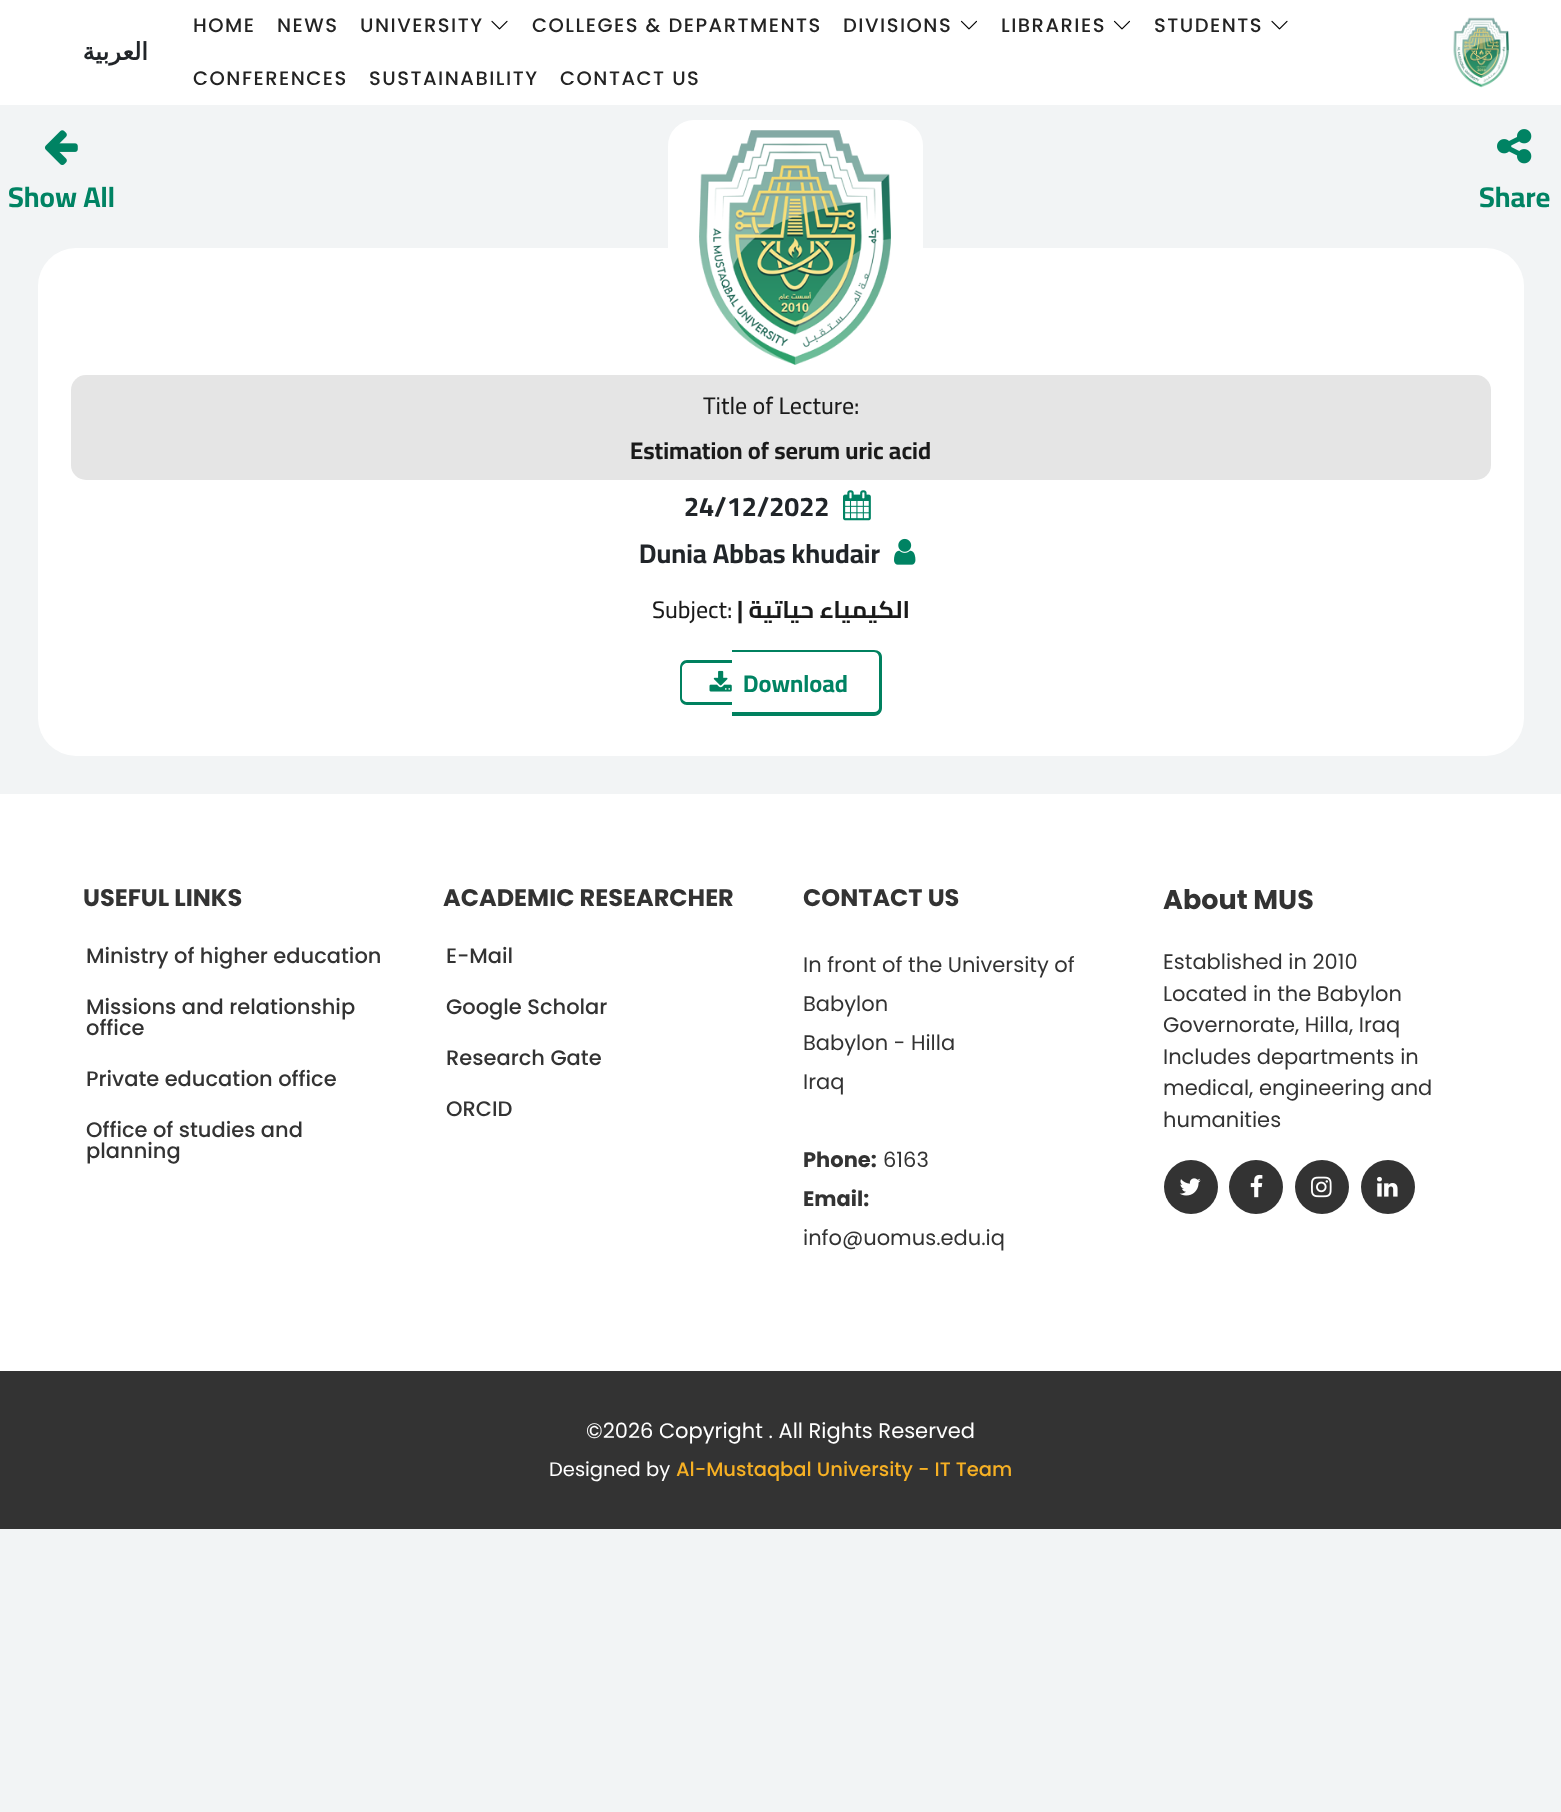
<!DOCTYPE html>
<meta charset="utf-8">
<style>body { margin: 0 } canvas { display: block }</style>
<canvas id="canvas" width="1561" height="1812"></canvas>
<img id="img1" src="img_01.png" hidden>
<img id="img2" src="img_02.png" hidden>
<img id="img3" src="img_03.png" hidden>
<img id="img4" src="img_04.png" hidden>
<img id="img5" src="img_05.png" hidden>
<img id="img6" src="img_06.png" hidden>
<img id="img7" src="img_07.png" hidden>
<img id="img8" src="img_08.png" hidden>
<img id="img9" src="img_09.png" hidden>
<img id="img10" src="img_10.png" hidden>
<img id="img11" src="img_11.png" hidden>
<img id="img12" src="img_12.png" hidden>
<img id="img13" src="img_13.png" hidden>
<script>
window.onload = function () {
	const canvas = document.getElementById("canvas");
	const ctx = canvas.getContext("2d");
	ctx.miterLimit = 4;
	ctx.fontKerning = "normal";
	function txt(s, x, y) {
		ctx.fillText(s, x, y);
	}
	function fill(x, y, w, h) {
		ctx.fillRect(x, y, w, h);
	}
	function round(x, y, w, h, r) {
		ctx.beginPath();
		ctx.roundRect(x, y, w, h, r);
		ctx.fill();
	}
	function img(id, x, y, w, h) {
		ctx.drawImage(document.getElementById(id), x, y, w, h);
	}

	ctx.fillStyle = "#F2F4F5";
	fill(0, 0, 1561, 1812);
	ctx.fillStyle = "#FFFFFF";
	fill(0, 0, 1561, 105);
	img("img1", 491, 20, 17, 10);
	img("img2", 960, 20, 17, 10);
	img("img2", 1113, 20, 17, 10);
	img("img1", 1271, 20, 17, 10);
	img("img3", 1453, 17, 56, 71);
	img("img4", 44, 130, 34, 35);
	img("img5", 1497, 129, 35, 35);
	ctx.beginPath();
	ctx.roundRect(670.5, 122.5, 250, 250, 23.5);
	ctx.fill();
	ctx.strokeStyle = "#FFFFFF";
	ctx.lineWidth = 5;
	ctx.stroke();
	round(38, 248, 1486, 508, 38);
	img("img6", 699, 130, 192, 235);
	ctx.fillStyle = "#E5E5E5";
	round(71, 375, 1420, 105, 15);
	img("img7", 843, 490, 28, 31);
	img("img8", 894, 538, 22, 27);
	ctx.fillStyle = "#00815F";
	ctx.beginPath();
	ctx.moveTo(687, 660);
	ctx.lineTo(732, 660);
	ctx.lineTo(732, 705);
	ctx.lineTo(687, 705);
	ctx.bezierCurveTo(683, 705, 680, 702, 680, 698);
	ctx.lineTo(680, 668);
	ctx.bezierCurveTo(680, 663, 683, 660, 687, 660);
	ctx.closePath();
	ctx.moveTo(687, 663);
	ctx.lineTo(732, 663);
	ctx.lineTo(732, 702);
	ctx.lineTo(687, 702);
	ctx.bezierCurveTo(685, 702, 682, 700, 682, 698);
	ctx.lineTo(682, 668);
	ctx.bezierCurveTo(682, 665, 685, 663, 687, 663);
	ctx.closePath();
	ctx.fill("evenodd");
	ctx.beginPath();
	ctx.moveTo(732, 650);
	ctx.lineTo(874, 650);
	ctx.bezierCurveTo(879, 650, 882, 653, 882, 657);
	ctx.lineTo(882, 708);
	ctx.bezierCurveTo(882, 712, 879, 716, 874, 716);
	ctx.lineTo(732, 716);
	ctx.closePath();
	ctx.moveTo(732, 652);
	ctx.lineTo(874, 652);
	ctx.bezierCurveTo(877, 652, 879, 655, 879, 657);
	ctx.lineTo(879, 708);
	ctx.bezierCurveTo(879, 710, 877, 712, 874, 712);
	ctx.lineTo(732, 712);
	ctx.closePath();
	ctx.fill("evenodd");
	img("img9", 709, 670, 23, 22);
	ctx.fillStyle = "#333333";
	fill(0, 1371, 1561, 158);
	ctx.fillStyle = "#FFFFFF";
	fill(0, 794, 1561, 577);
	ctx.fillStyle = "#333333";
	ctx.beginPath();
	ctx.arc(1191, 1187, 27, 0, Math.PI * 2);
	ctx.fill();
	img("img10", 1179, 1178, 22, 18);
	ctx.beginPath();
	ctx.arc(1256, 1187, 27, 0, Math.PI * 2);
	ctx.fill();
	img("img11", 1250, 1174, 13, 24);
	ctx.beginPath();
	ctx.arc(1322, 1187, 27, 0, Math.PI * 2);
	ctx.fill();
	img("img12", 1311, 1176, 21, 22);
	ctx.beginPath();
	ctx.arc(1388, 1187, 27, 0, Math.PI * 2);
	ctx.fill();
	img("img13", 1377, 1176, 21, 21);
	ctx.direction = "rtl";
	ctx.font = "bold 24px DejaVu Sans";
	ctx.fillStyle = "#212529";
	txt("العربية", 148, 60);
	ctx.letterSpacing = "1.5px";
	ctx.direction = "ltr";
	ctx.font = "500 19.5px Poppins";
	ctx.fillStyle = "#232323";
	txt("HOME", 193, 32);
	txt("NEWS", 277, 32);
	txt("UNIVERSITY", 360, 32);
	txt("COLLEGES & DEPARTMENTS", 532, 32);
	txt("DIVISIONS", 843, 32);
	txt("LIBRARIES", 1001, 32);
	txt("STUDENTS", 1154, 32);
	txt("CONFERENCES", 193, 85);
	txt("SUSTAINABILITY", 369, 85);
	txt("CONTACT US", 560, 85);
	ctx.letterSpacing = "0px";
	ctx.font = "bold 28.5px Cairo";
	ctx.fillStyle = "#008363";
	txt("Show All", 8, 207);
	txt("Share", 1479, 207);
	ctx.font = "500 24px Cairo";
	ctx.fillStyle = "#1A1A1A";
	txt("Title of Lecture:", 703, 414);
	ctx.font = "bold 24px Cairo";
	txt("Estimation of serum uric acid", 630, 459);
	ctx.font = "bold 27px Cairo";
	ctx.fillStyle = "#212529";
	txt("24/12/2022", 684, 516);
	txt("Dunia Abbas khudair", 639, 563);
	ctx.font = "500 24px Cairo";
	ctx.fillStyle = "#1A1A1A";
	txt("Subject:", 652, 618);
	ctx.font = "bold 24px Cairo";
	txt("|", 737, 618);
	ctx.direction = "rtl";
	txt("الكيمياء حياتية", 910, 618);
	ctx.direction = "ltr";
	ctx.fillStyle = "#008363";
	txt("Download", 743, 692);
	ctx.font = "bold 24px Poppins";
	ctx.fillStyle = "#333333";
	txt("USEFUL LINKS", 83, 906);
	ctx.font = "500 21px Poppins";
	txt("Ministry of higher education", 86, 963);
	txt("Missions and relationship", 86, 1014);
	txt("office", 86, 1035);
	txt("Private education office", 86, 1086);
	txt("Office of studies and", 86, 1137);
	txt("planning", 86, 1158);
	ctx.font = "bold 24px Poppins";
	txt("ACADEMIC RESEARCHER", 443, 906);
	ctx.font = "500 21px Poppins";
	txt("E-Mail", 446, 963);
	txt("Google Scholar", 446, 1014);
	txt("Research Gate", 446, 1065);
	txt("ORCID", 446, 1116);
	ctx.font = "bold 24px Poppins";
	txt("CONTACT US", 803, 906);
	ctx.font = "21px Poppins";
	txt("In front of the University of", 803, 972);
	txt("Babylon", 803, 1011);
	txt("Babylon - Hilla", 803, 1050);
	txt("Iraq", 803, 1089);
	ctx.font = "bold 21px Poppins";
	txt("Phone:", 803, 1167);
	ctx.font = "21px Poppins";
	txt("6163", 883, 1167);
	ctx.font = "bold 21px Poppins";
	txt("Email:", 803, 1206);
	ctx.font = "21px Poppins";
	txt("info@uomus.edu.iq", 803, 1245);
	ctx.font = "bold 27px Poppins";
	txt("About MUS", 1163, 909);
	ctx.font = "21px Poppins";
	txt("Established in 2010", 1163, 969);
	txt("Located in the Babylon", 1163, 1001);
	txt("Governorate, Hilla, Iraq", 1163, 1032);
	txt("Includes departments in", 1163, 1064);
	txt("medical, engineering and", 1163, 1095);
	txt("humanities", 1163, 1127);
	ctx.fillStyle = "#FFFFFF";
	txt("©2026 Copyright . All Rights Reserved", 586, 1438);
	ctx.font = "19.5px Poppins";
	txt("Designed by", 549, 1476);
	ctx.font = "500 19.5px Poppins";
	ctx.fillStyle = "#F6B024";
	txt("Al-Mustaqbal University - IT Team", 676, 1476);
};
</script>
